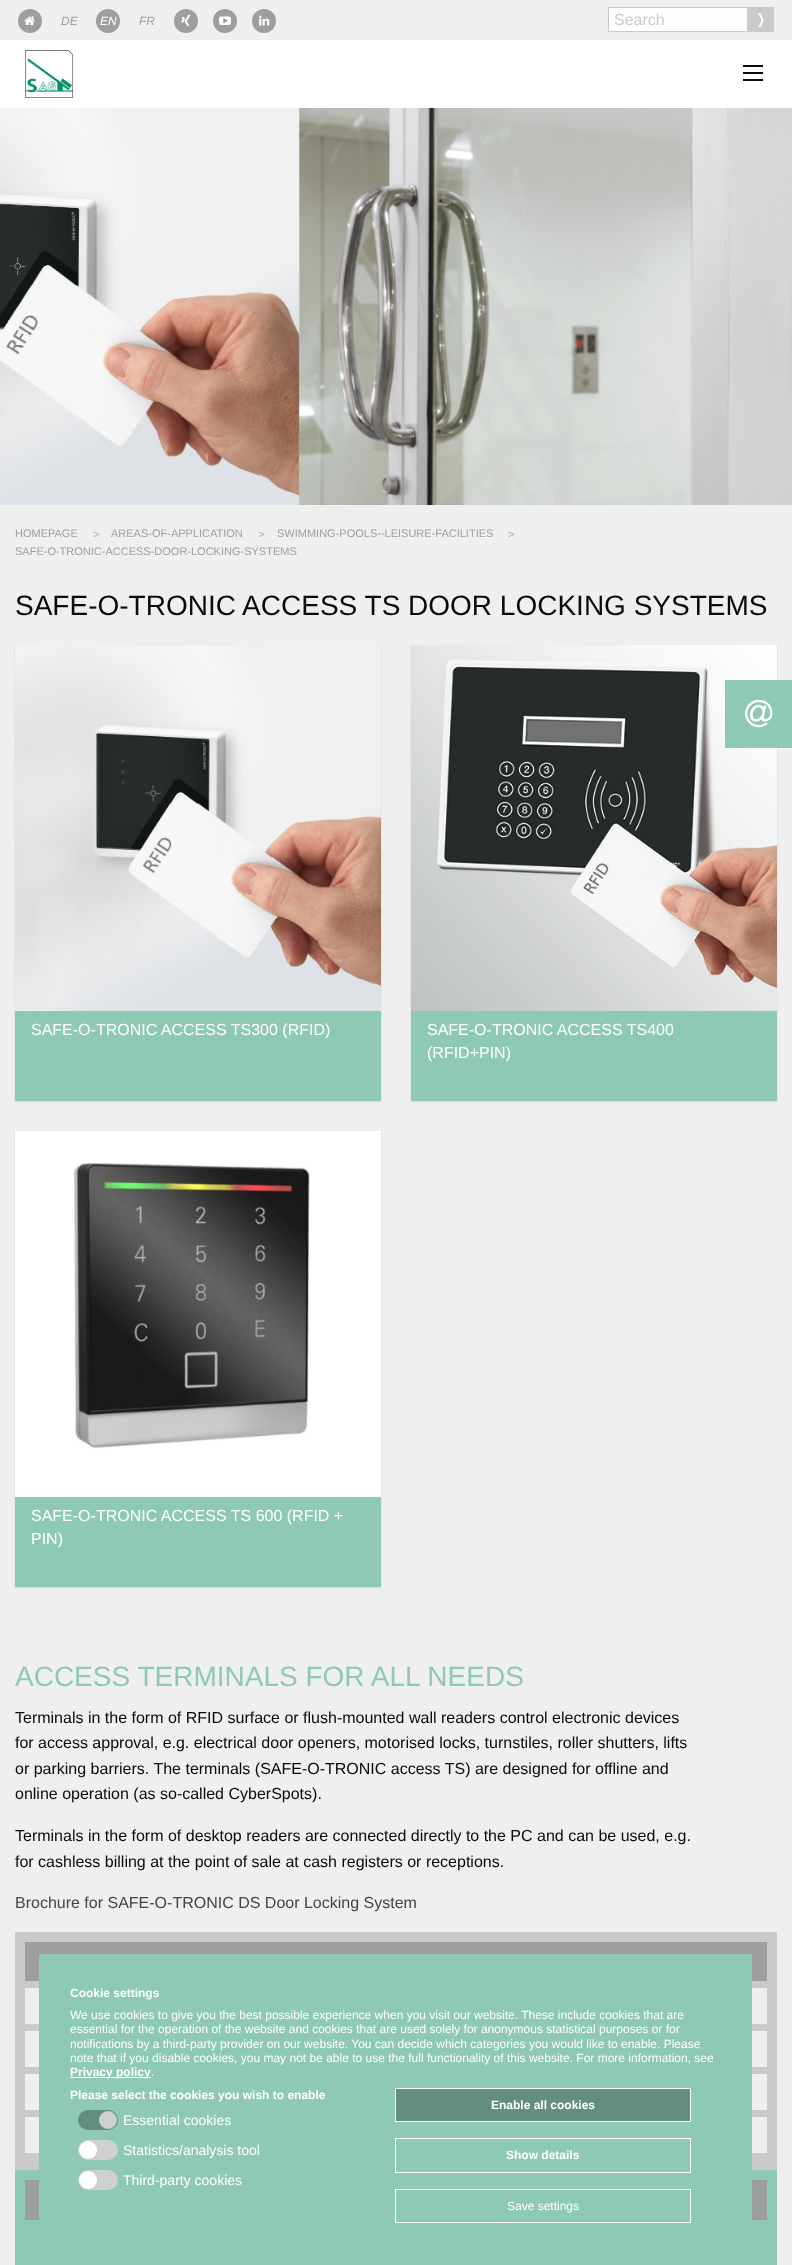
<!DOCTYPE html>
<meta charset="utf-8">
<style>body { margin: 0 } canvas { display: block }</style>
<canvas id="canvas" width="792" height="2265"></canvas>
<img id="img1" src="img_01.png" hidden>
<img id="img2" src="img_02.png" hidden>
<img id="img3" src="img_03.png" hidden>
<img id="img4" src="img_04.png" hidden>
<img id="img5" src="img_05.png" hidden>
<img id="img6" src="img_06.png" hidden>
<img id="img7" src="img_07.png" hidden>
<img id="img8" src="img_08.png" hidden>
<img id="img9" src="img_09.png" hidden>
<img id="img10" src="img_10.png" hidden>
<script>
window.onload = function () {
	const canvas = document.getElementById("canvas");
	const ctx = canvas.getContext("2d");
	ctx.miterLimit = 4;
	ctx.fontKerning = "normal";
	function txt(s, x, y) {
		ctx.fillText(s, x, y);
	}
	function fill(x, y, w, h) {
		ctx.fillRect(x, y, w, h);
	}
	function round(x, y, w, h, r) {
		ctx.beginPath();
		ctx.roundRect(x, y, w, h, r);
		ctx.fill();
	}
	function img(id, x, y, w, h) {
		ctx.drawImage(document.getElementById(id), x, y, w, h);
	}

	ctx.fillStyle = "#EFEFEF";
	fill(0, 0, 792, 2265);
	ctx.fillStyle = "#9C9E9F";
	ctx.beginPath();
	ctx.arc(30, 21, 12, 0, Math.PI * 2);
	ctx.fill();
	img("img1", 24, 16, 11, 9);
	ctx.beginPath();
	ctx.arc(108, 21, 12, 0, Math.PI * 2);
	ctx.fill();
	ctx.beginPath();
	ctx.arc(186, 21, 12, 0, Math.PI * 2);
	ctx.fill();
	img("img2", 181, 14, 10, 12);
	ctx.beginPath();
	ctx.arc(225, 21, 12, 0, Math.PI * 2);
	ctx.fill();
	img("img3", 219, 16, 12, 9);
	ctx.beginPath();
	ctx.arc(264, 21, 12, 0, Math.PI * 2);
	ctx.fill();
	img("img4", 259, 15, 11, 11);
	ctx.fillStyle = "#FEFEFE";
	ctx.beginPath();
	ctx.rect(608.5, 7.5, 139, 24);
	ctx.fill();
	ctx.strokeStyle = "#CACACA";
	ctx.stroke();
	ctx.fillStyle = "#CACACA";
	fill(748, 7, 26, 25);
	ctx.fillStyle = "#FFFFFF";
	fill(0, 40, 792, 68);
	img("img5", 25, 50, 48, 48);
	ctx.fillStyle = "#0A0A0A";
	fill(743, 79, 20, 2);
	fill(743, 72, 20, 2);
	fill(743, 65, 20, 2);
	img("img6", 0, 108, 792, 397);
	ctx.fillStyle = "rgba(0, 0, 0, 0.1)";
	ctx.filter = "blur(1px)";
	ctx.beginPath();
	ctx.rect(15, 646, 366, 456);
	ctx.fill();
	ctx.filter = "none";
	img("img7", 15, 645, 366, 366);
	ctx.fillStyle = "#8EC9B4";
	fill(15, 1011, 366, 90);
	ctx.fillStyle = "rgba(0, 0, 0, 0.1)";
	ctx.filter = "blur(1px)";
	ctx.beginPath();
	ctx.rect(411, 646, 366, 456);
	ctx.fill();
	ctx.filter = "none";
	img("img8", 411, 645, 366, 366);
	ctx.fillStyle = "#8EC9B4";
	fill(411, 1011, 366, 90);
	ctx.fillStyle = "rgba(0, 0, 0, 0.1)";
	ctx.filter = "blur(1px)";
	ctx.beginPath();
	ctx.rect(15, 1132, 366, 456);
	ctx.fill();
	ctx.filter = "none";
	ctx.fillStyle = "#FFFFFF";
	fill(15, 1131, 366, 366);
	img("img9", 73, 1162, 237, 287);
	ctx.fillStyle = "#8EC9B4";
	fill(15, 1497, 366, 90);
	ctx.fillStyle = "#CACACA";
	fill(15, 1932, 762, 238);
	ctx.fillStyle = "#9C9E9F";
	fill(25, 1942, 742, 39);
	ctx.fillStyle = "#EFEFEF";
	fill(25, 1988, 742, 36);
	fill(25, 2031, 742, 36);
	fill(25, 2074, 742, 36);
	fill(25, 2117, 742, 36);
	ctx.fillStyle = "#8EC9B4";
	fill(15, 2170, 762, 95);
	ctx.fillStyle = "#9C9E9F";
	fill(25, 2180, 742, 40);
	ctx.fillStyle = "#8EC9B4";
	fill(725, 680, 67, 68);
	img("img10", 745, 699, 28, 29);
	fill(39, 1954, 713, 266);
	ctx.fillStyle = "#FFFFFF";
	fill(70, 2077, 81, 1);
	ctx.fillStyle = "#638D7E";
	round(78, 2110, 40, 20, 10);
	ctx.fillStyle = "#CFD0D0";
	ctx.beginPath();
	ctx.arc(108, 2120, 9, 0, Math.PI * 2);
	ctx.fill();
	round(78, 2140, 40, 20, 10);
	ctx.fillStyle = "#FFFFFF";
	ctx.beginPath();
	ctx.arc(88, 2150, 9, 0, Math.PI * 2);
	ctx.fill();
	ctx.fillStyle = "#CFD0D0";
	round(78, 2170, 40, 20, 10);
	ctx.fillStyle = "#FFFFFF";
	ctx.beginPath();
	ctx.arc(88, 2180, 9, 0, Math.PI * 2);
	ctx.fill();
	ctx.fillStyle = "#638D7E";
	ctx.beginPath();
	ctx.rect(395.5, 2088.5, 295, 33);
	ctx.fill();
	ctx.strokeStyle = "#FFFFFF";
	ctx.stroke();
	ctx.strokeRect(395.5, 2138.5, 295, 34);
	ctx.strokeRect(395.5, 2189.5, 295, 33);
	ctx.font = "italic 12px Liberation Sans";
	ctx.fillStyle = "#9C9E9F";
	txt("DE", 61, 25);
	ctx.fillStyle = "#FFFFFF";
	txt("EN", 100, 25);
	ctx.fillStyle = "#9C9E9F";
	txt("FR", 139, 25);
	ctx.font = "16px Liberation Sans";
	ctx.fillStyle = "#CACACA";
	txt("Search", 614, 25);
	ctx.font = "14px DejaVu Sans";
	ctx.fillStyle = "#FFFFFF";
	txt("❭", 755, 24);
	ctx.font = "11px Liberation Sans";
	ctx.fillStyle = "#9C9E9F";
	txt("HOMEPAGE", 15, 537);
	ctx.fillStyle = "#B2B2B2";
	txt(">", 93, 538);
	ctx.fillStyle = "#9C9E9F";
	txt("AREAS-OF-APPLICATION", 111, 537);
	ctx.fillStyle = "#B2B2B2";
	txt(">", 258, 538);
	ctx.fillStyle = "#9C9E9F";
	txt("SWIMMING-POOLS--LEISURE-FACILITIES", 277, 537);
	ctx.fillStyle = "#B2B2B2";
	txt(">", 508, 538);
	ctx.fillStyle = "#9C9E9F";
	txt("SAFE-O-TRONIC-ACCESS-DOOR-LOCKING-SYSTEMS", 15, 555);
	ctx.font = "28px Liberation Sans";
	ctx.fillStyle = "#0A0A0A";
	txt("SAFE-O-TRONIC ACCESS TS DOOR LOCKING SYSTEMS", 15, 615);
	ctx.font = "16px Liberation Sans";
	ctx.fillStyle = "#FFFFFF";
	txt("SAFE-O-TRONIC ACCESS TS300 (RFID)", 31, 1035);
	txt("SAFE-O-TRONIC ACCESS TS400", 427, 1035);
	txt("(RFID+PIN)", 427, 1058);
	txt("SAFE-O-TRONIC ACCESS TS 600 (RFID +", 31, 1521);
	txt("PIN)", 31, 1544);
	ctx.font = "28px Liberation Sans";
	ctx.fillStyle = "#8EC9B4";
	txt("ACCESS TERMINALS FOR ALL NEEDS", 15, 1686);
	ctx.font = "16px Liberation Sans";
	ctx.fillStyle = "#0A0A0A";
	txt("Terminals in the form of RFID surface or flush-mounted wall readers control electronic devices", 15, 1723);
	txt("for access approval, e.g. electrical door openers, motorised locks, turnstiles, roller shutters, lifts", 15, 1748);
	txt("or parking barriers. The terminals (SAFE-O-TRONIC access TS) are designed for offline and", 15, 1774);
	txt("online operation (as so-called CyberSpots).", 15, 1799);
	txt("Terminals in the form of desktop readers are connected directly to the PC and can be used, e.g.", 15, 1841);
	txt("for cashless billing at the point of sale at cash registers or receptions.", 15, 1867);
	ctx.fillStyle = "#444444";
	txt("Brochure for SAFE-O-TRONIC DS Door Locking System", 15, 1908);
	ctx.font = "bold 12px Liberation Sans";
	ctx.fillStyle = "#FFFFFF";
	txt("Cookie settings", 70, 1997);
	ctx.font = "12px Liberation Sans";
	txt("We use cookies to give you the best possible experience when you visit our website. These include cookies that are", 70, 2019);
	txt("essential for the operation of the website and cookies that are used solely for anonymous statistical purposes or for", 70, 2033);
	txt("notifications by a third-party provider on our website. You can decide which categories you would like to enable. Please", 70, 2048);
	txt("note that if you disable cookies, you may not be able to use the full functionality of this website. For more information, see", 70, 2062);
	ctx.font = "bold 12px Liberation Sans";
	txt("Privacy policy", 70, 2076);
	ctx.font = "12px Liberation Sans";
	txt(".", 151, 2076);
	ctx.font = "bold 12px Liberation Sans";
	txt("Please select the cookies you wish to enable", 70, 2099);
	ctx.font = "14px Liberation Sans";
	txt("Essential cookies", 123, 2125);
	txt("Statistics/analysis tool", 123, 2155);
	txt("Third-party cookies", 123, 2185);
	ctx.font = "bold 12px Liberation Sans";
	txt("Enable all cookies", 491, 2109);
	txt("Show details", 506, 2159);
	ctx.font = "12px Liberation Sans";
	txt("Save settings", 507, 2210);
};
</script>
